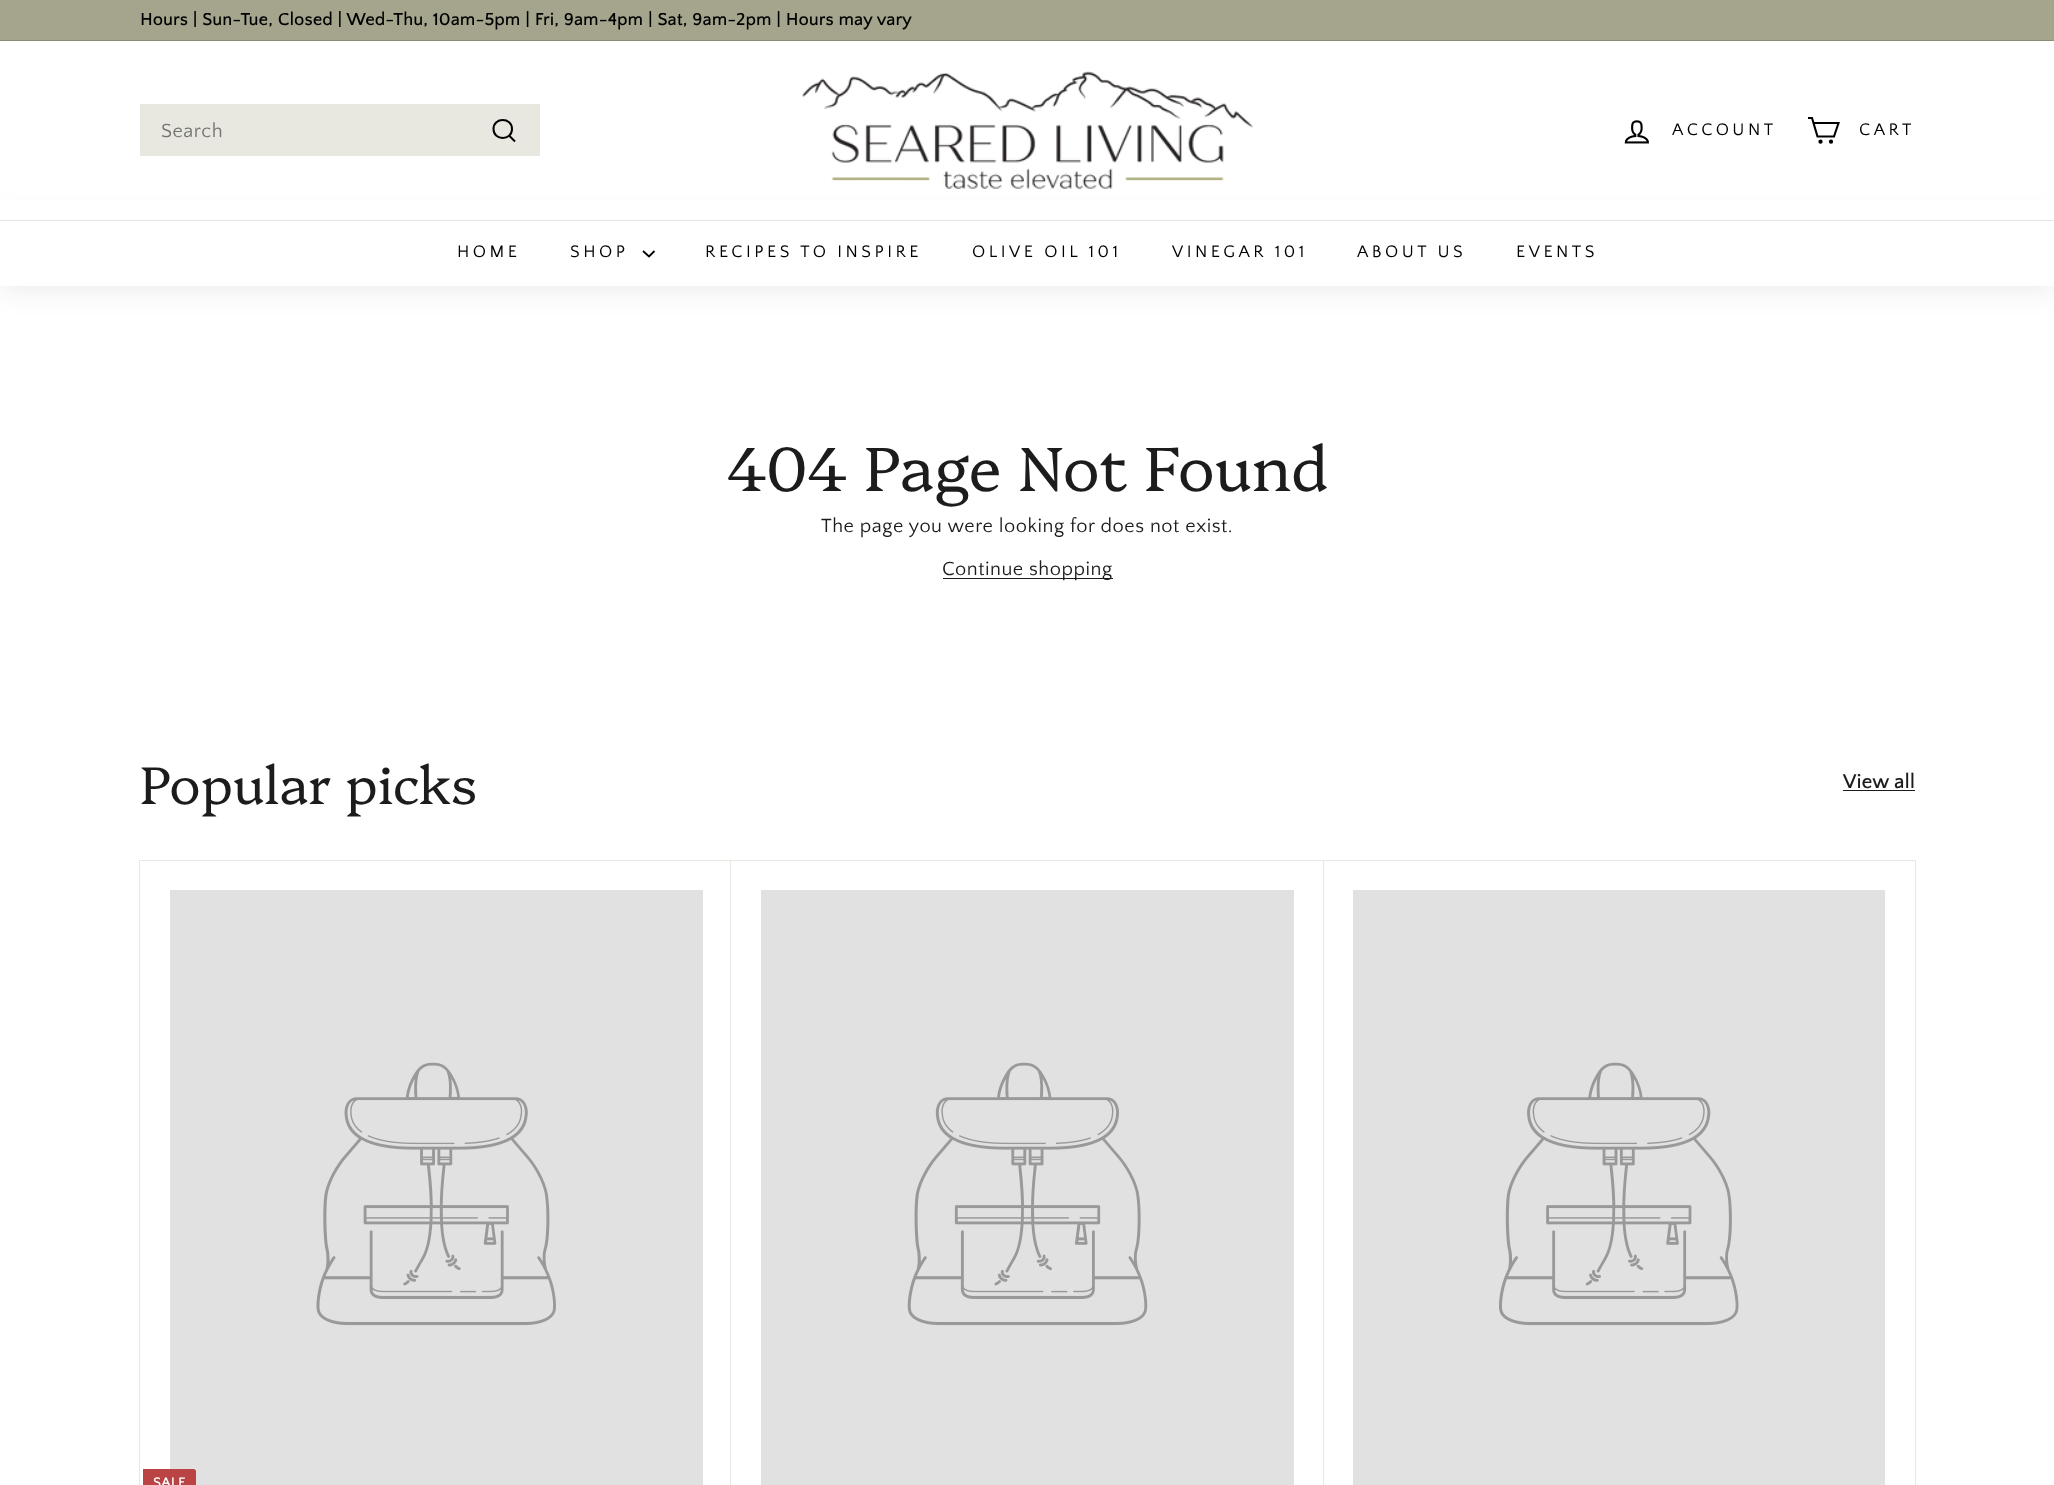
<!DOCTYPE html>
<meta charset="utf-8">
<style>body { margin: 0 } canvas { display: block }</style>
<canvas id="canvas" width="2054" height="1485"></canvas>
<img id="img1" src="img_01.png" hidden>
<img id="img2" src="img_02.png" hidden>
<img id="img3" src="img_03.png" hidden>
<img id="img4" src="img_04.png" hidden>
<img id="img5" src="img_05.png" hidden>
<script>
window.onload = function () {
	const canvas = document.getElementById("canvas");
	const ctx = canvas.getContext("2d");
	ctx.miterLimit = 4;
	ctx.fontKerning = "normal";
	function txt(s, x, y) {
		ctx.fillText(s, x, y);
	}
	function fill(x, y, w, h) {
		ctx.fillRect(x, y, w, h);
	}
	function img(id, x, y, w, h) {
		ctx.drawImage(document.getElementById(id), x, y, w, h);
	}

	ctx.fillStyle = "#FFFFFF";
	fill(0, 0, 2054, 1485);
	ctx.fillStyle = "#A5A58D";
	fill(0, 0, 2054, 40);
	ctx.fillStyle = "#8C8C78";
	fill(0, 40, 2054, 1);
	ctx.fillStyle = "rgba(0, 0, 0, 0.1)";
	ctx.filter = "blur(15.5px)";
	ctx.beginPath();
	ctx.rect(0, 220, 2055, 66);
	ctx.fill();
	ctx.filter = "none";
	ctx.fillStyle = "#FFFFFF";
	fill(0, 200, 2054, 20);
	ctx.fillStyle = "#E8E8E1";
	fill(140, 104, 400, 52);
	ctx.beginPath();
	ctx.moveTo(512, 129);
	ctx.bezierCurveTo(512, 141, 493.5, 141, 493.5, 129);
	ctx.bezierCurveTo(493.5, 117, 512, 117, 512, 129);
	ctx.closePath();
	ctx.moveTo(515, 141.5);
	ctx.lineTo(509, 135.5);
	ctx.strokeStyle = "#000000";
	ctx.lineWidth = 2;
	ctx.stroke();
	img("img1", 802, 71, 451, 118);
	img("img2", 1624, 120, 25, 24);
	ctx.beginPath();
	ctx.moveTo(1813.5, 123);
	ctx.lineTo(1838.5, 123);
	ctx.lineTo(1834, 136.5);
	ctx.lineTo(1817.5, 136.5);
	ctx.lineTo(1812, 118);
	ctx.lineTo(1808, 118);
	ctx.lineWidth = 2.1;
	ctx.stroke();
	ctx.beginPath();
	ctx.arc(1820.5, 141.7, 1.1, 0, Math.PI * 2);
	ctx.stroke();
	ctx.beginPath();
	ctx.arc(1831, 141.7, 1.1, 0, Math.PI * 2);
	ctx.stroke();
	ctx.fillStyle = "#FFFFFF";
	fill(0, 221, 2054, 65);
	ctx.fillStyle = "#E6E6E6";
	fill(0, 220, 2054, 1);
	ctx.beginPath();
	ctx.moveTo(643, 251);
	ctx.lineTo(649, 256.5);
	ctx.lineTo(654.5, 251);
	ctx.lineWidth = 1.8;
	ctx.stroke();
	ctx.fillStyle = "#1C1C1C";
	fill(943, 578, 170, 1);
	fill(1843, 790, 72, 1);
	ctx.fillStyle = "#E1E1E1";
	fill(170, 890, 533, 595);
	img("img3", 316, 1062, 240, 264);
	ctx.strokeStyle = "#E8E8E1";
	ctx.lineWidth = 1;
	ctx.strokeRect(139.5, 860.5, 593, 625);
	ctx.fillStyle = "#BA4444";
	ctx.beginPath();
	ctx.moveTo(143, 1469);
	ctx.lineTo(193.5, 1469);
	ctx.bezierCurveTo(195, 1469, 196, 1470, 196, 1471.5);
	ctx.lineTo(196, 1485.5);
	ctx.bezierCurveTo(196, 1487, 195, 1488, 193.5, 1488);
	ctx.lineTo(143, 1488);
	ctx.closePath();
	ctx.fill();
	ctx.fillStyle = "#FFFFFF";
	fill(732, 861, 1, 624);
	ctx.fillStyle = "#E1E1E1";
	fill(761, 890, 533, 595);
	img("img4", 907, 1062, 241, 264);
	ctx.strokeRect(730.5, 860.5, 594, 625);
	ctx.fillStyle = "#FFFFFF";
	fill(1324, 861, 1, 624);
	ctx.fillStyle = "#E1E1E1";
	fill(1353, 890, 532, 595);
	img("img5", 1499, 1062, 240, 264);
	ctx.strokeRect(1323.5, 860.5, 592, 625);
	ctx.letterSpacing = "0.5px";
	ctx.font = "bold 17.5px Quattrocento Sans";
	ctx.fillStyle = "#000000";
	txt("Hours | Sun-Tue, Closed | Wed-Thu, 10am-5pm | Fri, 9am-4pm | Sat, 9am-2pm | Hours may vary", 140, 25);
	ctx.font = "20px Quattrocento Sans";
	ctx.fillStyle = "#747471";
	txt("Search", 161, 137);
	ctx.letterSpacing = "3.5px";
	ctx.font = "17.5px Quattrocento Sans";
	ctx.fillStyle = "#000000";
	txt("ACCOUNT", 1672, 135);
	txt("CART", 1859, 135);
	txt("HOME", 457, 257);
	txt("SHOP", 570, 257);
	txt("RECIPES TO INSPIRE", 705, 257);
	txt("OLIVE OIL 101", 972, 257);
	txt("VINEGAR 101", 1172, 257);
	txt("ABOUT US", 1357, 257);
	txt("EVENTS", 1516, 257);
	ctx.letterSpacing = "0px";
	ctx.font = "300 62.5px Platypi";
	ctx.fillStyle = "#1C1C1C";
	txt("404 Page Not Found", 727, 491);
	ctx.letterSpacing = "0.5px";
	ctx.font = "20px Quattrocento Sans";
	txt("The page you were looking for does not exist.", 821, 532);
	txt("Continue shopping", 942, 575);
	ctx.letterSpacing = "0px";
	ctx.font = "300 53px Platypi";
	txt("Popular picks", 140, 804);
	ctx.letterSpacing = "0.5px";
	ctx.font = "bold 20px Quattrocento Sans";
	txt("View all", 1843, 788);
	ctx.font = "bold 14px Quattrocento Sans";
	ctx.fillStyle = "#FFFFFF";
	txt("SALE", 153, 1487);
};
</script>
